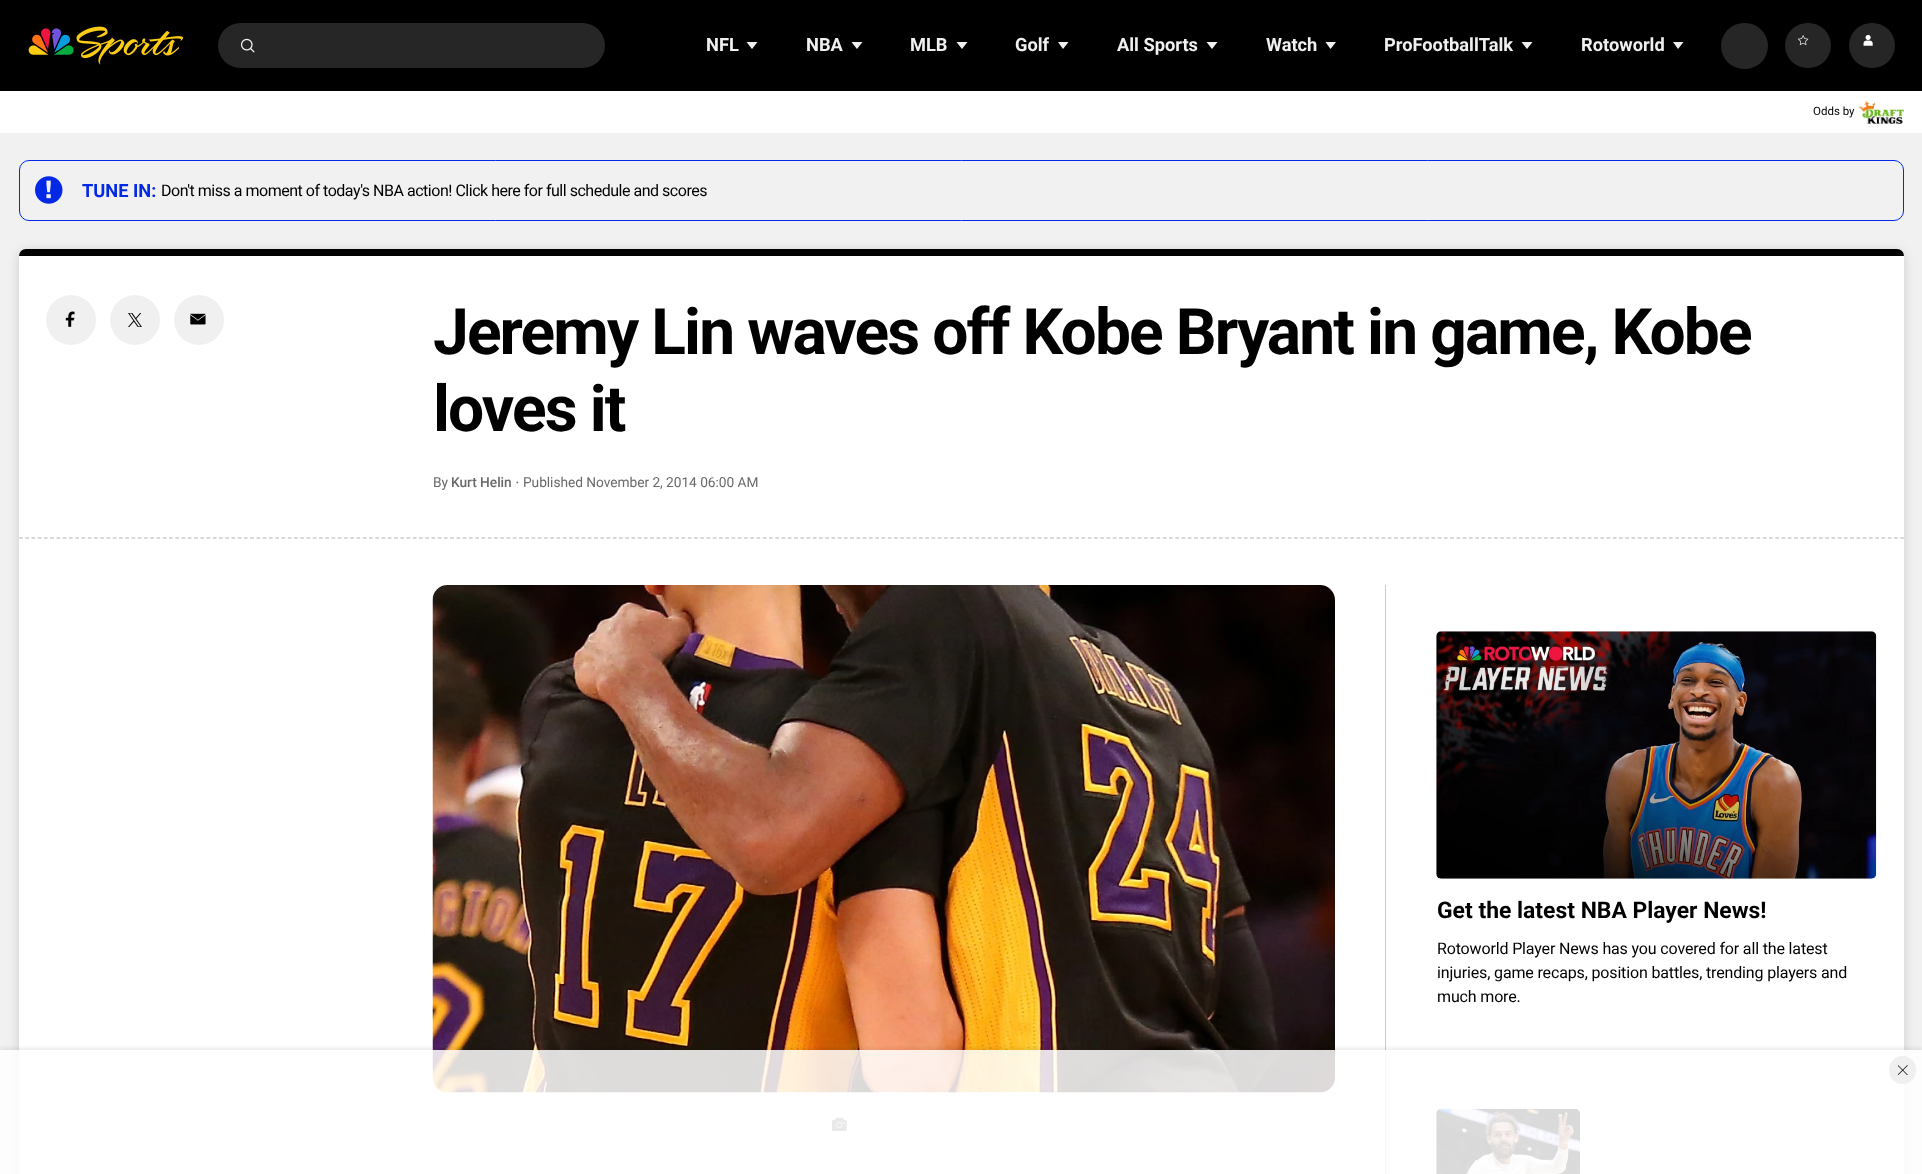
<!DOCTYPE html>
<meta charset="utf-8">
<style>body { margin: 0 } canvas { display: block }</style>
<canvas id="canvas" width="1922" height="1174"></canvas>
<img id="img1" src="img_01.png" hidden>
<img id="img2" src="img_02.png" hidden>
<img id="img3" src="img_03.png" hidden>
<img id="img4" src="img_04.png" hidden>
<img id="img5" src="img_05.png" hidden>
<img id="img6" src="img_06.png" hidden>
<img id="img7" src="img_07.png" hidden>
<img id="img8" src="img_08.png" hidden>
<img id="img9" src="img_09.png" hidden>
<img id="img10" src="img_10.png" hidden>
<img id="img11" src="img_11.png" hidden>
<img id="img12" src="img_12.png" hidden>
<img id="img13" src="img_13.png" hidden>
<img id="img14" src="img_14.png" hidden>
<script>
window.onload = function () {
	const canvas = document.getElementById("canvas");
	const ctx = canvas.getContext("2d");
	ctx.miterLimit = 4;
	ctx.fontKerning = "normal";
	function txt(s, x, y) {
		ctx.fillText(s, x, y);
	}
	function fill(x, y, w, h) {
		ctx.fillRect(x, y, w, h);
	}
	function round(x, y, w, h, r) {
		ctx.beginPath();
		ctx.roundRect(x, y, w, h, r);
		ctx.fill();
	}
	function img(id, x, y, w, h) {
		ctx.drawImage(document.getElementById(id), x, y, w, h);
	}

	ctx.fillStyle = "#F1F1F1";
	fill(0, 0, 1922, 1174);
	ctx.fillStyle = "#000000";
	fill(0, 0, 1922, 91);
	img("img1", 28, 26, 155, 39);
	ctx.fillStyle = "#262626";
	round(218, 23, 387, 45, 22.5);
	img("img2", 240, 38, 15, 15);
	ctx.fillStyle = "#F0F0F0";
	ctx.beginPath();
	ctx.moveTo(752, 49);
	ctx.lineTo(746.5, 42);
	ctx.lineTo(757.5, 42);
	ctx.closePath();
	ctx.fill();
	ctx.beginPath();
	ctx.moveTo(857, 49);
	ctx.lineTo(851.5, 42);
	ctx.lineTo(862.5, 42);
	ctx.closePath();
	ctx.fill();
	ctx.beginPath();
	ctx.moveTo(962, 49);
	ctx.lineTo(956.5, 42);
	ctx.lineTo(967.5, 42);
	ctx.closePath();
	ctx.fill();
	ctx.beginPath();
	ctx.moveTo(1063, 49);
	ctx.lineTo(1058, 42);
	ctx.lineTo(1068.5, 42);
	ctx.closePath();
	ctx.fill();
	ctx.beginPath();
	ctx.moveTo(1212, 49);
	ctx.lineTo(1206.5, 42);
	ctx.lineTo(1217.5, 42);
	ctx.closePath();
	ctx.fill();
	ctx.beginPath();
	ctx.moveTo(1330.5, 49);
	ctx.lineTo(1325.5, 42);
	ctx.lineTo(1336, 42);
	ctx.closePath();
	ctx.fill();
	ctx.beginPath();
	ctx.moveTo(1527, 49);
	ctx.lineTo(1521.5, 42);
	ctx.lineTo(1532.5, 42);
	ctx.closePath();
	ctx.fill();
	ctx.beginPath();
	ctx.moveTo(1678, 49);
	ctx.lineTo(1673, 42);
	ctx.lineTo(1683.5, 42);
	ctx.closePath();
	ctx.fill();
	ctx.fillStyle = "#262626";
	round(1721, 23, 47, 46, 23);
	round(1785, 23, 46, 45, 22.5);
	img("img3", 1797, 35, 12, 11);
	round(1849, 23, 46, 45, 22.5);
	img("img4", 1863, 34, 10, 12);
	ctx.fillStyle = "#FFFFFF";
	fill(0, 91, 1922, 42);
	img("img5", 1858, 101, 46, 23);
	ctx.beginPath();
	ctx.roundRect(19.5, 160.5, 1884, 60, 9.5);
	ctx.strokeStyle = "#0329E7";
	ctx.stroke();
	img("img6", 35, 176, 28, 28);
	ctx.fillStyle = "rgba(0, 0, 0, 0.15)";
	ctx.filter = "blur(6px)";
	ctx.beginPath();
	ctx.roundRect(19, 251, 1885, 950, 9);
	ctx.fill();
	ctx.filter = "none";
	ctx.fillStyle = "#FFFFFF";
	round(19, 249, 1885, 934, 9);
	ctx.fillStyle = "#000000";
	ctx.beginPath();
	ctx.roundRect(19, 249, 1885, 7, [7, 7, 0, 0]);
	ctx.fill();
	ctx.beginPath();
	ctx.moveTo(19, 538);
	ctx.lineTo(1904, 538);
	ctx.strokeStyle = "#B3B3B3";
	ctx.lineWidth = 1.2;
	ctx.setLineDash([3.75, 2.5]);
	ctx.stroke();
	ctx.fillStyle = "#F0F0F0";
	ctx.beginPath();
	ctx.arc(71, 320, 25, 0, Math.PI * 2);
	ctx.fill();
	img("img7", 65, 311, 10, 16);
	ctx.beginPath();
	ctx.arc(135, 320, 25, 0, Math.PI * 2);
	ctx.fill();
	img("img8", 128, 313, 14, 14);
	ctx.beginPath();
	ctx.arc(199, 320, 25, 0, Math.PI * 2);
	ctx.fill();
	img("img9", 190, 313, 16, 12);
	ctx.fillStyle = "#6A6A6A";
	ctx.beginPath();
	ctx.arc(517.3, 482.4, 0.9, 0, Math.PI * 2);
	ctx.fill();
	img("img10", 432, 585, 903, 508);
	img("img11", 832, 1117, 15, 14);
	ctx.fillStyle = "#CCCCCC";
	fill(1385, 585, 1, 589);
	img("img12", 1436, 631, 441, 248);
	img("img13", 1436, 1108, 144, 66);
	ctx.save();
	ctx.beginPath();
	ctx.rect(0, 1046, 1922, 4);
	ctx.clip();
	ctx.fillStyle = "rgba(0, 0, 0, 0.08)";
	ctx.filter = "blur(2.5px)";
	ctx.beginPath();
	ctx.rect(0, 1048, 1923, 125);
	ctx.fill();
	ctx.filter = "none";
	ctx.restore();
	ctx.fillStyle = "rgba(255, 255, 255, 0.85)";
	fill(0, 1050, 1922, 124);
	ctx.fillStyle = "#EFEFEF";
	round(1889, 1056, 27, 28, 13.5);
	img("img14", 1898, 1065, 10, 10);
	ctx.font = "bold 18.25px Roboto";
	ctx.fillStyle = "#F0F0F0";
	txt("NFL", 706, 51);
	txt("NBA", 806, 51);
	txt("MLB", 910, 51);
	txt("Golf", 1015, 51);
	txt("All Sports", 1117, 51);
	txt("Watch", 1266, 51);
	txt("ProFootballTalk", 1384, 51);
	txt("Rotoworld", 1581, 51);
	ctx.font = "11.5px Roboto";
	ctx.fillStyle = "#000000";
	txt("Odds by", 1813, 115);
	ctx.font = "bold 18.25px Roboto";
	ctx.fillStyle = "#0329E7";
	txt("TUNE IN:", 82, 197);
	ctx.letterSpacing = "-0.48px";
	ctx.font = "16px Roboto";
	ctx.fillStyle = "#000000";
	txt("Don't miss a moment of today's NBA action! Click here for full schedule and scores", 161, 196);
	ctx.letterSpacing = "-1.9px";
	ctx.font = "bold 64.1px Roboto";
	txt("Jeremy Lin waves off Kobe Bryant in game, Kobe", 433, 354);
	txt("loves it", 433, 431);
	ctx.letterSpacing = "-0.05px";
	ctx.font = "13.75px Roboto";
	ctx.fillStyle = "#6A6A6A";
	txt("By", 433, 487);
	ctx.font = "500 13.75px Roboto";
	txt("Kurt Helin", 451, 487);
	ctx.font = "13.75px Roboto";
	txt("Published November 2, 2014 06:00 AM", 523, 487);
	ctx.letterSpacing = "0px";
	ctx.font = "bold 22.9px Roboto";
	ctx.fillStyle = "#000000";
	txt("Get the latest NBA Player News!", 1437, 918);
	ctx.letterSpacing = "-0.15px";
	ctx.font = "16px Roboto";
	txt("Rotoworld Player News has you covered for all the latest", 1437, 954);
	txt("injuries, game recaps, position battles, trending players and", 1437, 978);
	txt("much more.", 1437, 1002);
};
</script>
